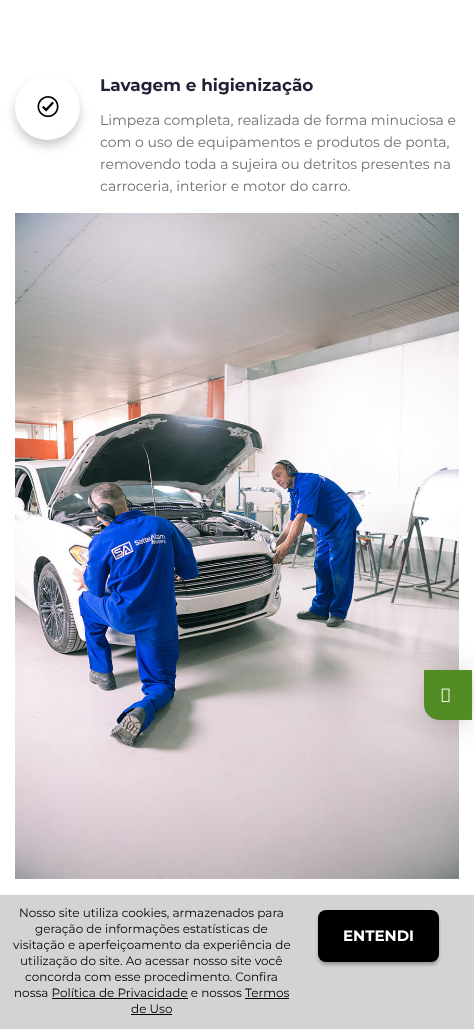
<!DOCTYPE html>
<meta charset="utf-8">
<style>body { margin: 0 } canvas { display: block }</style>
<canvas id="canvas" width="474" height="1029"></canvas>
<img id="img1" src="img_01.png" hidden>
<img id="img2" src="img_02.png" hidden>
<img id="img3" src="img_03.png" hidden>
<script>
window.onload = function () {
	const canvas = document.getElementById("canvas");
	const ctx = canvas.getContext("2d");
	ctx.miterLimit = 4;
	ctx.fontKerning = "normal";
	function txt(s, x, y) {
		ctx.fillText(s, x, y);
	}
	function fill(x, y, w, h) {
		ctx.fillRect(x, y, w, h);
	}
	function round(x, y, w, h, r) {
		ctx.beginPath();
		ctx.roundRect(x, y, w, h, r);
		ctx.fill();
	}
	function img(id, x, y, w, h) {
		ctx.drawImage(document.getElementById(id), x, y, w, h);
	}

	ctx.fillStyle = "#FFFFFF";
	fill(0, 0, 474, 1029);
	ctx.fillStyle = "rgba(0, 0, 0, 0.2)";
	ctx.filter = "blur(5px)";
	ctx.beginPath();
	ctx.roundRect(15, 81, 65, 65, 32.5);
	ctx.fill();
	ctx.filter = "none";
	ctx.fillStyle = "#FFFFFF";
	ctx.beginPath();
	ctx.arc(47.5, 107.5, 32.5, 0, Math.PI * 2);
	ctx.fill();
	img("img1", 37, 96, 22, 22);
	img("img2", 15, 213, 444, 666);
	ctx.fillStyle = "#FAFAFA";
	fill(0, 894, 474, 1);
	ctx.fillStyle = "rgba(0, 0, 0, 0.16)";
	ctx.filter = "blur(16px)";
	ctx.beginPath();
	ctx.roundRect(424, 672, 48, 50, 15);
	ctx.fill();
	ctx.filter = "none";
	ctx.fillStyle = "rgba(0, 0, 0, 0.06)";
	ctx.filter = "blur(3px)";
	ctx.beginPath();
	ctx.roundRect(424, 671, 48, 50, 15);
	ctx.fill();
	ctx.filter = "none";
	ctx.fillStyle = "#518C24";
	ctx.beginPath();
	ctx.roundRect(424.5, 670.5, 47, 49, [0, 0, 0, 14.5]);
	ctx.fill();
	ctx.strokeStyle = "#518C24";
	ctx.stroke();
	img("img3", 441, 688, 9, 14);
	ctx.fillStyle = "#D3D3D3";
	fill(0, 895, 474, 134);
	ctx.fillStyle = "#000000";
	fill(52, 998, 136, 1);
	fill(245, 998, 44, 1);
	fill(131, 1014, 41, 1);
	ctx.fillStyle = "rgba(0, 0, 0, 0.25)";
	ctx.filter = "blur(1.5px)";
	ctx.beginPath();
	ctx.roundRect(318, 913, 121, 52, 8);
	ctx.fill();
	ctx.filter = "none";
	ctx.fillStyle = "#000000";
	round(318, 910, 121, 52, 8);
	ctx.font = "bold 16.9px Montserrat";
	ctx.fillStyle = "#232135";
	txt("Lavagem e higienização", 100, 91);
	ctx.font = "14px Montserrat";
	ctx.fillStyle = "#6F6F6F";
	txt("Limpeza completa, realizada de forma minuciosa e", 100, 125);
	txt("com o uso de equipamentos e produtos de ponta,", 100, 147);
	txt("removendo toda a sujeira ou detritos presentes na", 100, 169);
	txt("carroceria, interior e motor do carro.", 100, 191);
	ctx.font = "12px Montserrat";
	ctx.fillStyle = "#000000";
	txt("Nosso site utiliza cookies, armazenados para", 19, 917);
	txt("geração de informações estatísticas de", 35, 933);
	txt("visitação e aperfeiçoamento da experiência de", 13, 949);
	txt("utilização do site. Ao acessar nosso site você", 20, 965);
	txt("concorda com esse procedimento. Confira", 25, 981);
	txt("nossa Política de Privacidade e nossos Termos", 14, 997);
	txt("de Uso", 131, 1013);
	ctx.font = "bold 15px Montserrat";
	ctx.fillStyle = "#FFFFFF";
	txt("ENTENDI", 343, 941);
};
</script>
